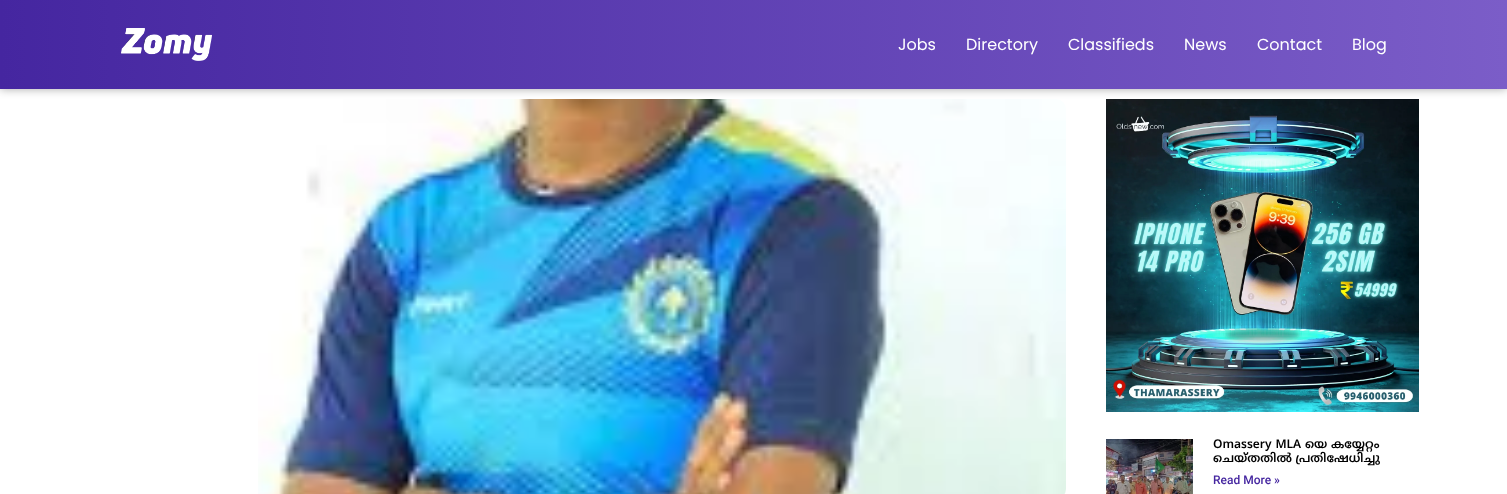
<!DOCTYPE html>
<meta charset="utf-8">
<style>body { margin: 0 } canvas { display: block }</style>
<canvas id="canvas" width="1507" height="494"></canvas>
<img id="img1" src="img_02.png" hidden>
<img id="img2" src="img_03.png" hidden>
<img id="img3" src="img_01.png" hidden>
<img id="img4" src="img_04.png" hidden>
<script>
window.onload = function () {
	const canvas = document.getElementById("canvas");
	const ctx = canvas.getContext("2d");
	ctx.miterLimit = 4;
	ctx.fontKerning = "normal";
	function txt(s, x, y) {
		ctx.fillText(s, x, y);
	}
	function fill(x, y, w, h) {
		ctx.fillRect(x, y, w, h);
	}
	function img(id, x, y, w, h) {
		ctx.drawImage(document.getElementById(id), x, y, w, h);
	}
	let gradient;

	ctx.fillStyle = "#FFFFFF";
	fill(0, 0, 1507, 494);
	img("img1", 258, 99, 808, 395);
	img("img2", 1106, 99, 313, 313);
	ctx.fillStyle = "rgba(0, 0, 0, 0.34)";
	ctx.filter = "blur(5px)";
	ctx.beginPath();
	ctx.rect(0, 0, 1507, 89);
	ctx.fill();
	ctx.filter = "none";
	gradient = ctx.createLinearGradient(0, 45, 1507, 44);
	gradient.addColorStop(0, "#4526A0");
	gradient.addColorStop(1, "#7B5DC8");
	ctx.fillStyle = gradient;
	fill(0, 0, 1507, 89);
	img("img3", 121, 28, 91, 33);
	img("img4", 1106, 439, 87, 55);
	ctx.font = "16px Poppins";
	ctx.fillStyle = "#FFFFFF";
	txt("Jobs", 898, 50);
	txt("Directory", 966, 50);
	txt("Classifieds", 1068, 50);
	txt("News", 1184, 50);
	txt("Contact", 1257, 50);
	txt("Blog", 1352, 50);
	ctx.save();
	ctx.beginPath();
	ctx.rect(1106, 439, 313, 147);
	ctx.clip();
	ctx.font = "600 12px Noto Sans Malayalam";
	ctx.fillStyle = "#000000";
	txt("Omassery MLA യെ കയ്യേറ്റം", 1213, 448);
	ctx.restore();
	ctx.font = "600 12px Noto Sans Malayalam";
	ctx.fillStyle = "#000000";
	txt("ചെയ്തതിൽ പ്രതിഷേധിച്ചു", 1213, 462);
	ctx.font = "500 12px Roboto";
	ctx.fillStyle = "#4526A0";
	txt("Read More »", 1213, 484);
};
</script>
